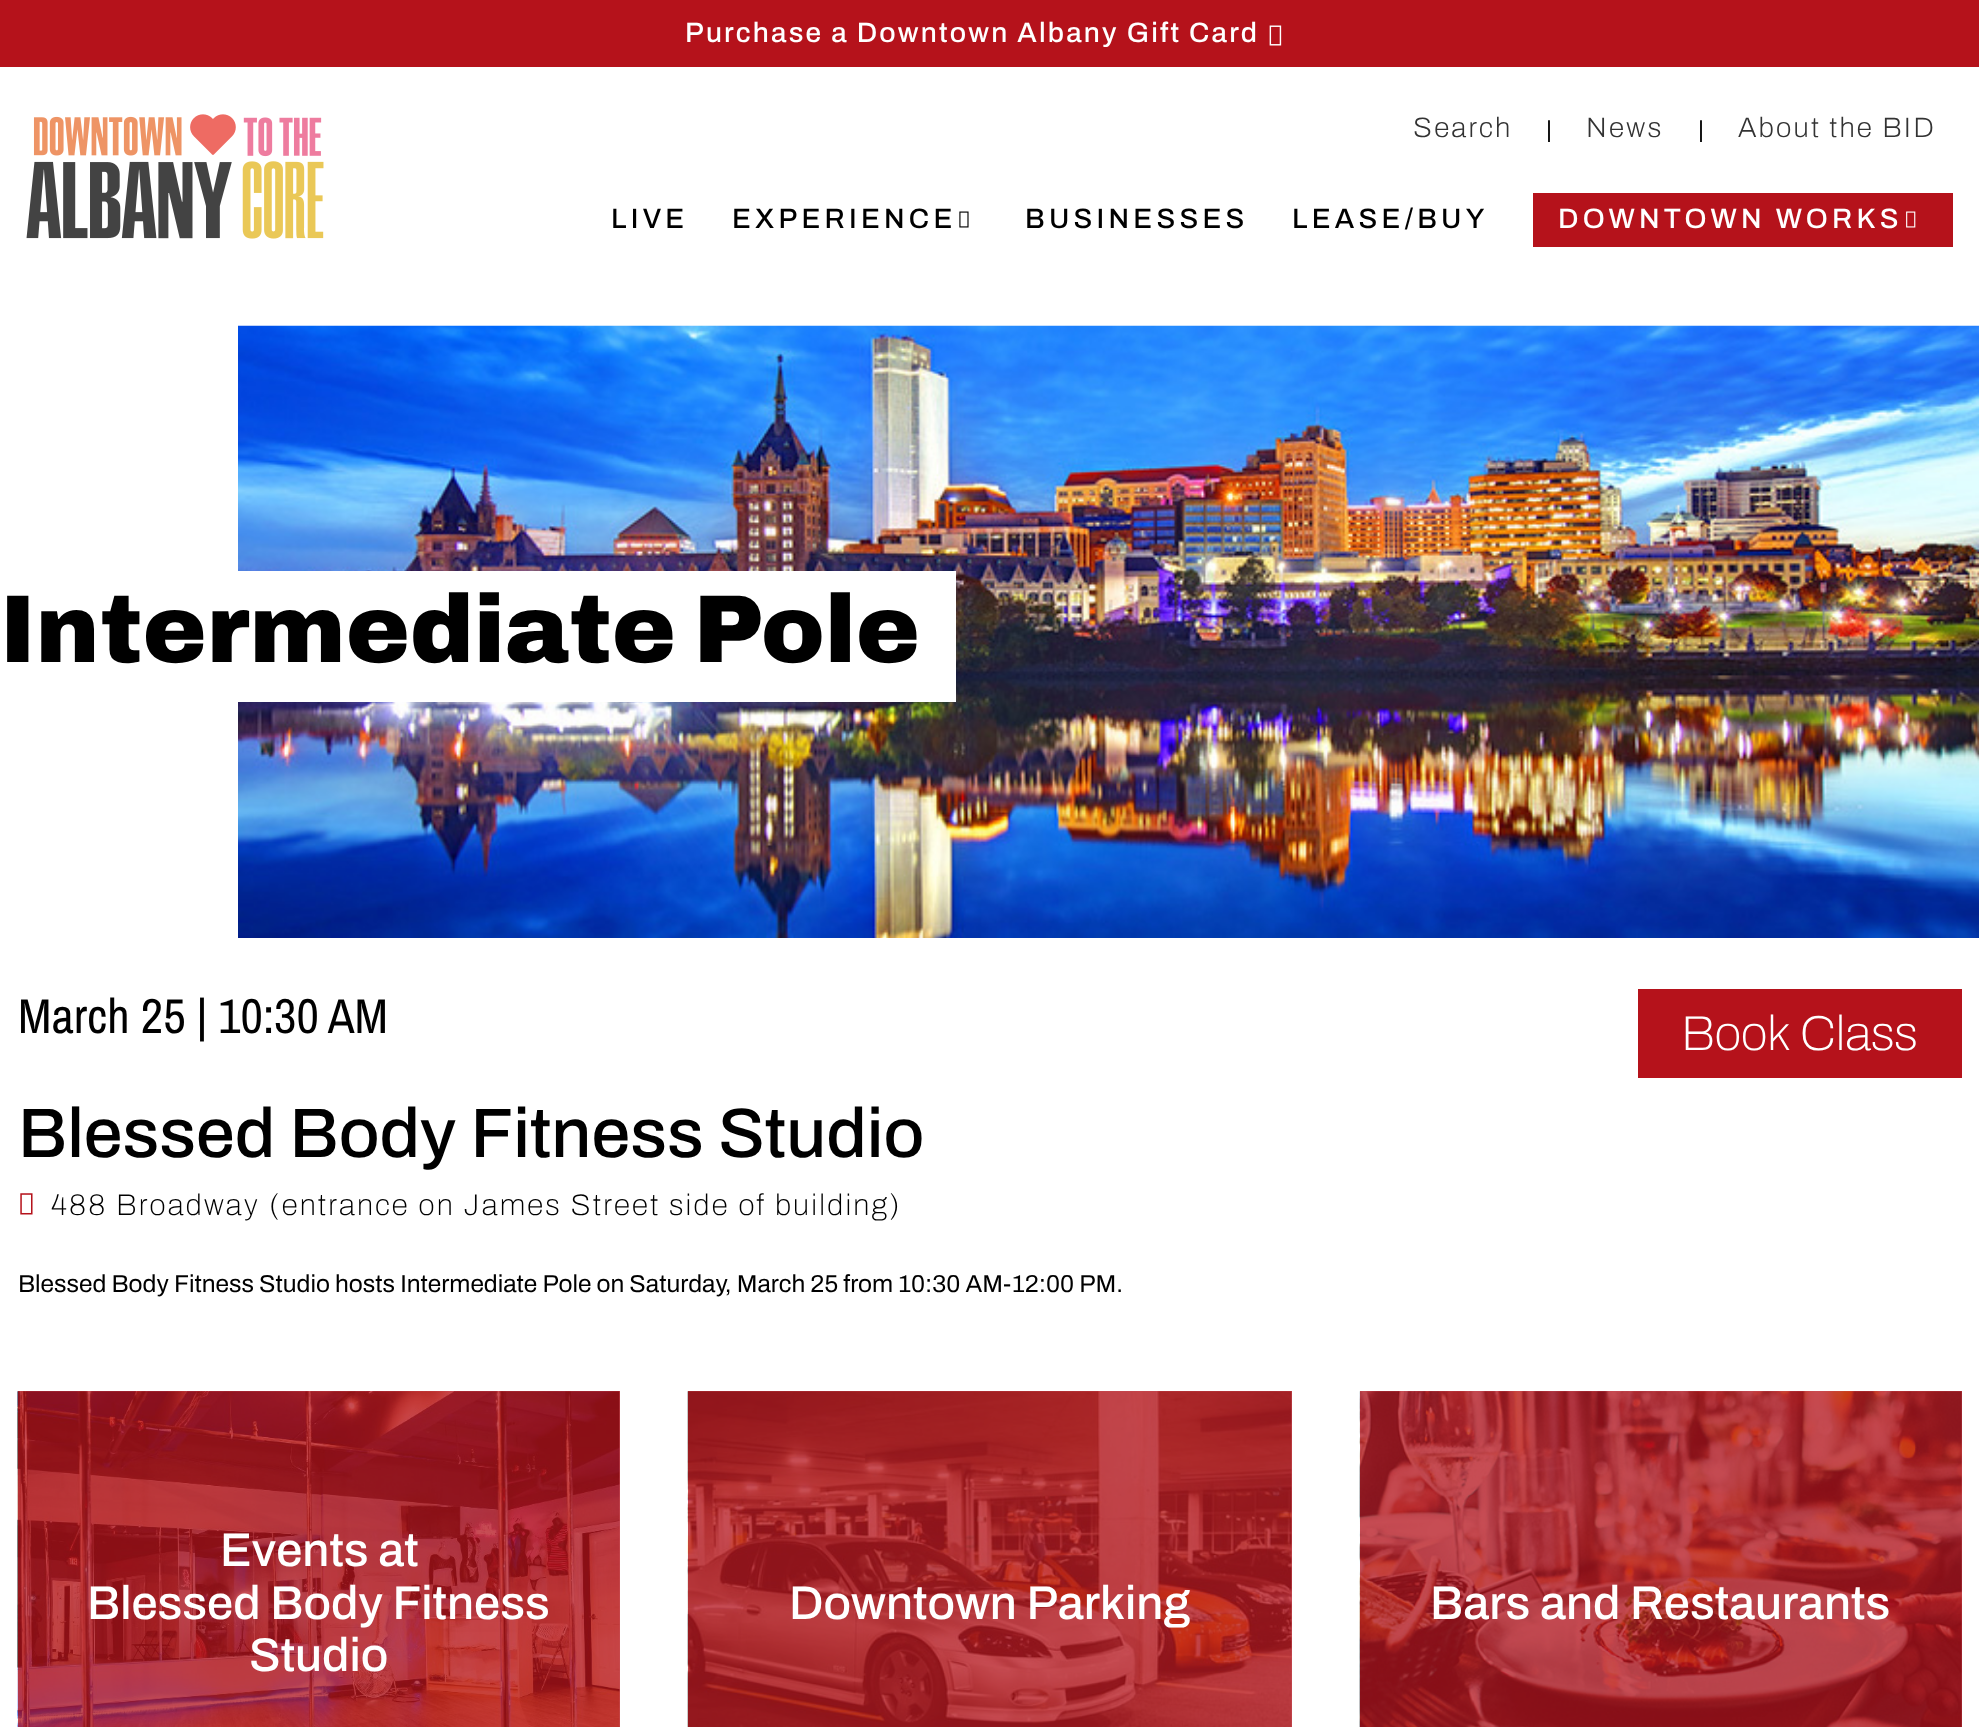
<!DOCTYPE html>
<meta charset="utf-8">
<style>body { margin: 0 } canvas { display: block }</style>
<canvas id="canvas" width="1979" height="1727"></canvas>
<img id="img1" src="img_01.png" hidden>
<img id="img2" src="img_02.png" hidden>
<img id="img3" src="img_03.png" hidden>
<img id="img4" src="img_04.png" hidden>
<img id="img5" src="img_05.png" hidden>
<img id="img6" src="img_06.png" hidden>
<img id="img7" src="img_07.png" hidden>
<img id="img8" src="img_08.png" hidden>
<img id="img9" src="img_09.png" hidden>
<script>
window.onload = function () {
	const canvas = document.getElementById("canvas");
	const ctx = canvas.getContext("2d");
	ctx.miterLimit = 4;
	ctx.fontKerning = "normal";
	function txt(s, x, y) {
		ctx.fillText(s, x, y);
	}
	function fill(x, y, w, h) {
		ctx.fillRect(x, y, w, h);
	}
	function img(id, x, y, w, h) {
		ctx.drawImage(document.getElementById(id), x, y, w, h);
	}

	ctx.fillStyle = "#FFFFFF";
	fill(0, 0, 1979, 1727);
	ctx.fillStyle = "#C84D54";
	fill(1360, 1391, 602, 336);
	fill(688, 1391, 604, 336);
	fill(18, 1391, 602, 336);
	ctx.fillStyle = "#B5121B";
	fill(0, 0, 1979, 67);
	img("img1", 1269, 25, 13, 21);
	img("img2", 26, 114, 298, 125);
	img("img3", 959, 211, 10, 17);
	fill(1533, 193, 420, 54);
	img("img4", 1906, 211, 10, 17);
	img("img5", 238, 325, 1741, 613);
	ctx.fillStyle = "#FFFFFF";
	fill(238, 571, 718, 131);
	ctx.fillStyle = "#B5121B";
	fill(1638, 989, 324, 89);
	img("img6", 20, 1193, 13, 22);
	img("img7", 17, 1391, 603, 336);
	img("img8", 687, 1391, 605, 336);
	img("img9", 1359, 1391, 603, 336);
	ctx.letterSpacing = "2.2px";
	ctx.font = "500 28px Archivo";
	ctx.fillStyle = "#FFFFFF";
	txt("Purchase a Downtown Albany Gift Card", 685, 42);
	ctx.font = "200 28px Archivo";
	ctx.fillStyle = "#333333";
	txt("Search", 1413, 137);
	ctx.letterSpacing = "0px";
	ctx.font = "23px Liberation Sans";
	ctx.fillStyle = "#000000";
	txt("|", 1546, 137);
	ctx.letterSpacing = "2.2px";
	ctx.font = "200 28px Archivo";
	ctx.fillStyle = "#333333";
	txt("News", 1586, 137);
	ctx.letterSpacing = "0px";
	ctx.font = "23px Liberation Sans";
	ctx.fillStyle = "#000000";
	txt("|", 1698, 137);
	ctx.letterSpacing = "2.2px";
	ctx.font = "200 28px Archivo";
	ctx.fillStyle = "#333333";
	txt("About the BID", 1738, 137);
	ctx.letterSpacing = "4.25px";
	ctx.font = "500 28px Archivo";
	ctx.fillStyle = "#000000";
	txt("LIVE", 611, 228);
	txt("EXPERIENCE", 732, 228);
	txt("BUSINESSES", 1025, 228);
	txt("LEASE/BUY", 1292, 228);
	ctx.fillStyle = "#FFFFFF";
	txt("DOWNTOWN WORKS", 1558, 228);
	ctx.letterSpacing = "0px";
	ctx.font = "900 96.25px Archivo";
	ctx.fillStyle = "#000000";
	txt("Intermediate Pole", 0, 662);
	ctx.font = "49px Archivo Narrow";
	txt("March 25 | 10:30 AM", 18, 1033);
	ctx.font = "100 49px Archivo";
	ctx.fillStyle = "#FFFFFF";
	txt("Book Class", 1681, 1050);
	ctx.font = "500 70px Archivo";
	ctx.fillStyle = "#000000";
	txt("Blessed Body Fitness Studio", 18, 1157);
	ctx.letterSpacing = "2.2px";
	ctx.font = "100 29.75px Archivo";
	txt("488 Broadway (entrance on James Street side of building)", 51, 1215);
	ctx.letterSpacing = "0px";
	ctx.font = "24.5px Archivo";
	txt("Blessed Body Fitness Studio hosts Intermediate Pole on Saturday, March 25 from 10:30 AM-12:00 PM.", 18, 1292);
	ctx.font = "500 47.25px Archivo";
	ctx.fillStyle = "#FFFFFF";
	txt("Events at", 220, 1566);
	txt("Blessed Body Fitness", 87, 1619);
	txt("Studio", 249, 1671);
	txt("Downtown Parking", 789, 1619);
	txt("Bars and Restaurants", 1430, 1619);
};
</script>
